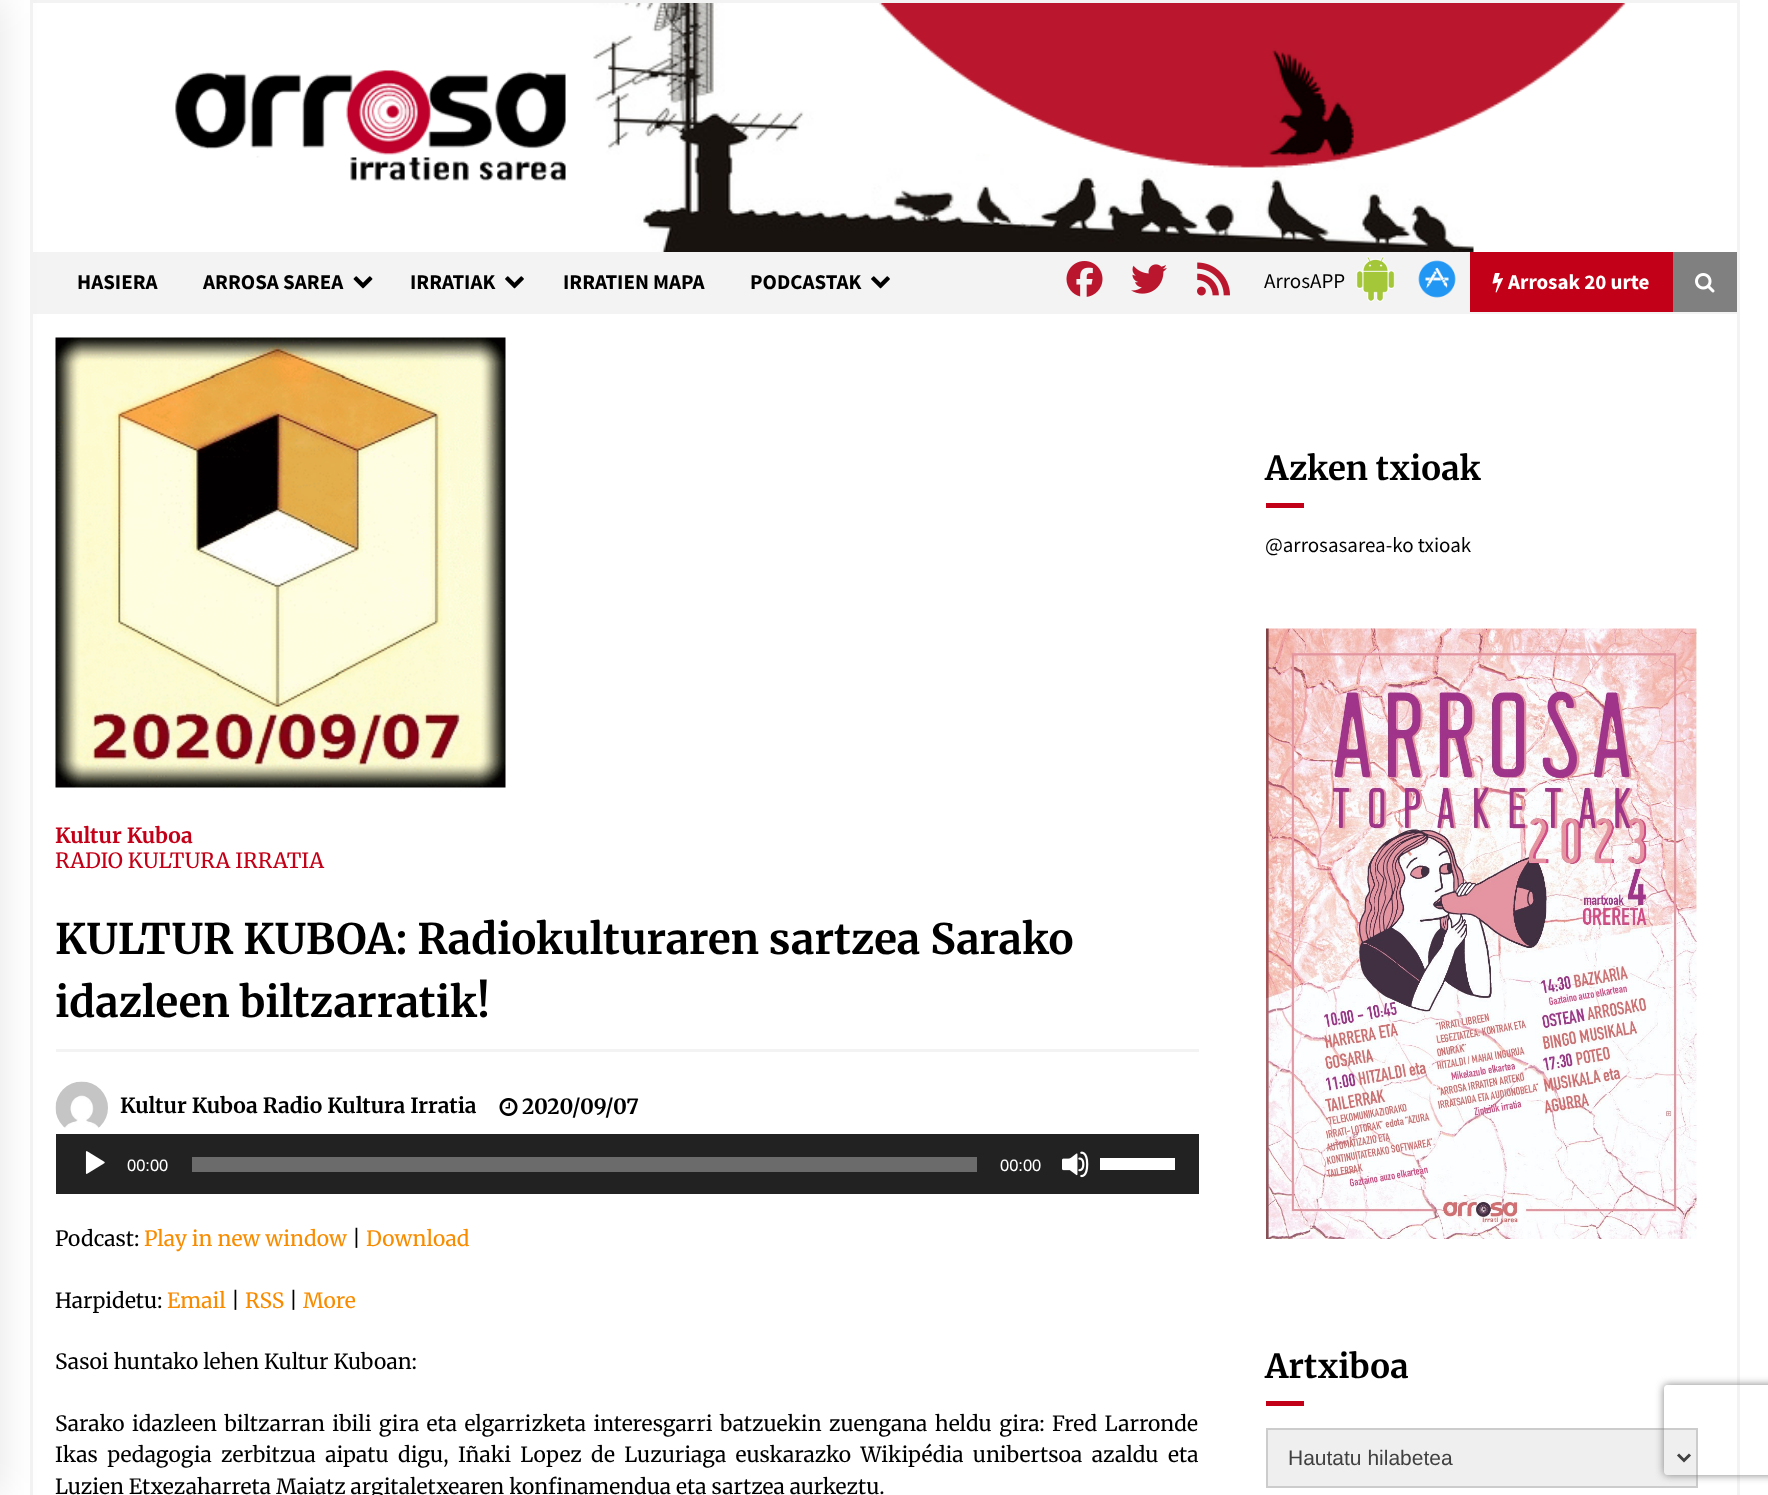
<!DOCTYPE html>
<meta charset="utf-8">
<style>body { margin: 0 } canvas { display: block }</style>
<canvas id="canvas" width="1768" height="1495"></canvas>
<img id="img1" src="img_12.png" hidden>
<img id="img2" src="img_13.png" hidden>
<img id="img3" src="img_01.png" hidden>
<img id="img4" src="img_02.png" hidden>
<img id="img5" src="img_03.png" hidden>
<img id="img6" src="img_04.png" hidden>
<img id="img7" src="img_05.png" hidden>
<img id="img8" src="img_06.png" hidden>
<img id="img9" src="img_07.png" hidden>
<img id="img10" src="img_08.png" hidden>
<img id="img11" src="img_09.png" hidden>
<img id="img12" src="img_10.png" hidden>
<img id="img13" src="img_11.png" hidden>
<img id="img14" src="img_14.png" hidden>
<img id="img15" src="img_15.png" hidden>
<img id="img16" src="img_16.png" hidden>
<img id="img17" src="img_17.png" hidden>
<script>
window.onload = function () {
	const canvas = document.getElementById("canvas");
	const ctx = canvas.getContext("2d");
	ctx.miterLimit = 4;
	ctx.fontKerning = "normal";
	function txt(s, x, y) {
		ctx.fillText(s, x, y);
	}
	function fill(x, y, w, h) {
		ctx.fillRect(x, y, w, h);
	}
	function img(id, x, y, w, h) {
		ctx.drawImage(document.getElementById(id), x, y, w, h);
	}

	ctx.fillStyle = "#FFFFFF";
	fill(0, 0, 1768, 1495);
	ctx.strokeStyle = "#F3F3F3";
	ctx.lineWidth = 3;
	ctx.strokeRect(31.5, 1.5, 1707, 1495);
	ctx.fillStyle = "#F3F3F3";
	fill(33, 252, 1704, 62);
	img("img1", 55, 337, 451, 451);
	fill(56, 1049, 1143, 3);
	img("img2", 55, 1081, 53, 47);
	ctx.fillStyle = "#222222";
	fill(56, 1134, 1143, 60);
	ctx.fillStyle = "rgba(0, 0, 0, 0.1)";
	ctx.filter = "blur(19px)";
	ctx.beginPath();
	ctx.rect(-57, 0, 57, 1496);
	ctx.fill();
	ctx.filter = "none";
	img("img3", 593, 3, 1033, 249);
	img("img4", 175, 70, 391, 111);
	img("img5", 353, 276, 20, 13);
	img("img6", 505, 276, 19, 13);
	img("img6", 871, 276, 19, 13);
	img("img7", 1066, 261, 37, 36);
	img("img8", 1131, 264, 36, 30);
	img("img9", 1197, 262, 33, 34);
	img("img10", 1356, 256, 39, 46);
	img("img11", 1418, 260, 38, 38);
	ctx.fillStyle = "#C20017";
	fill(1470, 252, 203, 60);
	img("img12", 1492, 273, 11, 20);
	ctx.fillStyle = "#808080";
	fill(1673, 252, 64, 60);
	img("img13", 1695, 273, 20, 20);
	img("img14", 499, 1098, 19, 18);
	img("img15", 85, 1151, 20, 23);
	ctx.fillStyle = "#6B6B6B";
	fill(192, 1157, 785, 15);
	img("img16", 1062, 1151, 27, 27);
	ctx.fillStyle = "#FFFFFF";
	fill(1100, 1158, 75, 12);
	ctx.fillStyle = "#C20017";
	fill(1266, 503, 38, 5);
	img("img17", 1266, 628, 431, 611);
	fill(1266, 1401, 38, 5);
	ctx.fillStyle = "#EFEFEF";
	ctx.beginPath();
	ctx.rect(1267, 1429, 430, 58);
	ctx.fill();
	ctx.strokeStyle = "#CCCCCC";
	ctx.lineWidth = 2;
	ctx.stroke();
	ctx.beginPath();
	ctx.moveTo(1678, 1454.5);
	ctx.lineTo(1684, 1460.5);
	ctx.lineTo(1690, 1454.5);
	ctx.strokeStyle = "#404040";
	ctx.lineWidth = 3;
	ctx.stroke();
	ctx.save();
	ctx.beginPath();
	ctx.moveTo(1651, 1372);
	ctx.lineTo(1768, 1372);
	ctx.lineTo(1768, 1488);
	ctx.lineTo(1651, 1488);
	ctx.closePath();
	ctx.moveTo(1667, 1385);
	ctx.lineTo(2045, 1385);
	ctx.bezierCurveTo(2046.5, 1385, 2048, 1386.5, 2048, 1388);
	ctx.lineTo(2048, 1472);
	ctx.bezierCurveTo(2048, 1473.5, 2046.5, 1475, 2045, 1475);
	ctx.lineTo(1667, 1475);
	ctx.bezierCurveTo(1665.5, 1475, 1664, 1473.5, 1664, 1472);
	ctx.lineTo(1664, 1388);
	ctx.bezierCurveTo(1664, 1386.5, 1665.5, 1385, 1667, 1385);
	ctx.closePath();
	ctx.clip("evenodd");
	ctx.fillStyle = "#808080";
	ctx.filter = "blur(4px)";
	ctx.beginPath();
	ctx.roundRect(1664, 1385, 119, 90, 3);
	ctx.fill();
	ctx.filter = "none";
	ctx.restore();
	ctx.font = "bold 21px Source Sans Pro";
	ctx.fillStyle = "#000000";
	txt("HASIERA", 77, 289);
	txt("ARROSA SAREA", 203, 289);
	txt("IRRATIAK", 410, 289);
	txt("IRRATIEN MAPA", 563, 289);
	txt("PODCASTAK", 750, 289);
	ctx.font = "21px Source Sans Pro";
	txt("ArrosAPP", 1264, 288);
	ctx.font = "bold 21px Source Sans Pro";
	ctx.fillStyle = "#FFFFFF";
	txt("Arrosak 20 urte", 1508, 289);
	ctx.font = "bold 21px Merriweather";
	ctx.fillStyle = "#C20017";
	txt("Kultur Kuboa", 55, 843);
	ctx.font = "21px Merriweather";
	txt("RADIO KULTURA IRRATIA", 55, 868);
	ctx.font = "bold 42px Merriweather";
	ctx.fillStyle = "#000000";
	txt("KULTUR KUBOA: Radiokulturaren sartzea Sarako", 55, 954);
	txt("idazleen biltzarratik!", 55, 1017);
	ctx.font = "bold 21px Merriweather";
	txt("Kultur Kuboa Radio Kultura Irratia", 120, 1113);
	txt("2020/09/07", 522, 1114);
	ctx.font = "16.5px Liberation Sans";
	ctx.fillStyle = "#FFFFFF";
	txt("00:00", 127, 1171);
	txt("00:00", 1000, 1171);
	ctx.font = "21px Merriweather";
	ctx.fillStyle = "#000000";
	txt("Podcast:", 55, 1246);
	ctx.fillStyle = "#F88C00";
	txt("Play in new window", 144, 1246);
	ctx.fillStyle = "#000000";
	txt("|", 352, 1246);
	ctx.fillStyle = "#F88C00";
	txt("Download", 366, 1246);
	ctx.fillStyle = "#000000";
	txt("Harpidetu:", 55, 1308);
	ctx.fillStyle = "#F88C00";
	txt("Email", 167, 1308);
	ctx.fillStyle = "#000000";
	txt("|", 231, 1308);
	ctx.fillStyle = "#F88C00";
	txt("RSS", 245, 1308);
	ctx.fillStyle = "#000000";
	txt("|", 289, 1308);
	ctx.fillStyle = "#F88C00";
	txt("More", 303, 1308);
	ctx.fillStyle = "#000000";
	txt("Sasoi huntako lehen Kultur Kuboan:", 55, 1369);
	ctx.wordSpacing = "2.4px";
	txt("Sarako idazleen biltzarran ibili gira eta elgarrizketa interesgarri batzuekin zuengana heldu gira: Fred Larronde", 55, 1431);
	ctx.wordSpacing = "4.4px";
	txt("Ikas pedagogia zerbitzua aipatu digu, Iñaki Lopez de Luzuriaga euskarazko Wikipédia unibertsoa azaldu eta", 55, 1462);
	ctx.wordSpacing = "0px";
	txt("Luzien Etxezaharreta Maiatz argitaletxearen konfinamendua eta sartzea aurkeztu.", 55, 1494);
	ctx.font = "bold 33px Merriweather";
	txt("Azken txioak", 1265, 480);
	ctx.font = "21px Source Sans Pro";
	txt("@arrosasarea-ko txioak", 1265, 552);
	ctx.font = "bold 33px Merriweather";
	txt("Artxiboa", 1265, 1378);
	ctx.font = "21px Liberation Sans";
	ctx.fillStyle = "#404040";
	txt("Hautatu hilabetea", 1288, 1465);
};
</script>
